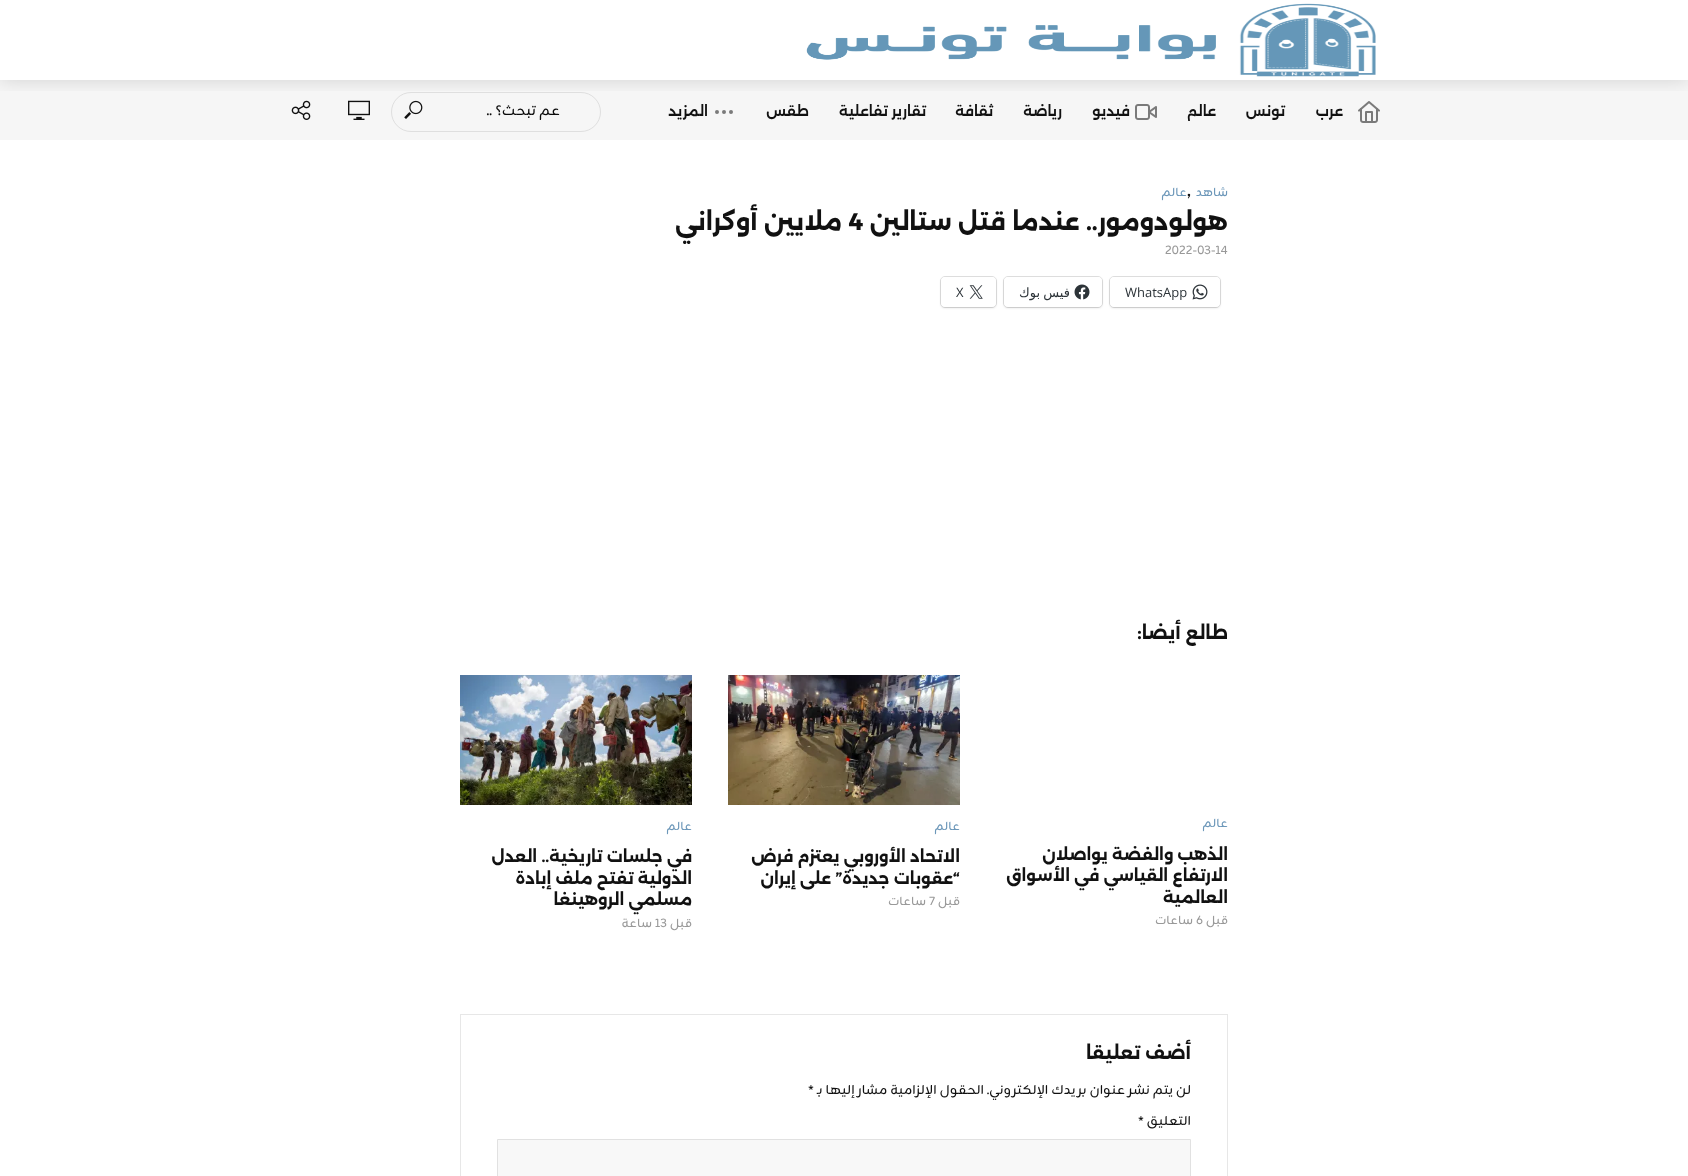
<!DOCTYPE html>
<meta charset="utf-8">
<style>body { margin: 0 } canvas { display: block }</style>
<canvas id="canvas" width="1688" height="1176"></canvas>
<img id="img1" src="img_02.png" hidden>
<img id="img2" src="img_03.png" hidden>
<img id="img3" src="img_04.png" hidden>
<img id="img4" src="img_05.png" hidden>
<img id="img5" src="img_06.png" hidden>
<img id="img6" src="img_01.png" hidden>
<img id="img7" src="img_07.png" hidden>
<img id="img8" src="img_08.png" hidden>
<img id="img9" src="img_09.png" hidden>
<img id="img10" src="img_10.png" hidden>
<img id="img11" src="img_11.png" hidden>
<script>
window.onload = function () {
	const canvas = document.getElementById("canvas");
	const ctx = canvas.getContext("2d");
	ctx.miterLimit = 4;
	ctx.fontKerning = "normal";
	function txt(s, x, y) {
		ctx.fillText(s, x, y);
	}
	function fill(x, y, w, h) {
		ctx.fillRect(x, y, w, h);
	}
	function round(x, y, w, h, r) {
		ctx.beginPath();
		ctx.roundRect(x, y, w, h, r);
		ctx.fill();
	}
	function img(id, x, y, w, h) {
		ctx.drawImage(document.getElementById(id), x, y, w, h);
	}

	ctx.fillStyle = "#FFFFFF";
	fill(0, 0, 1688, 1176);
	ctx.fillStyle = "#F6F6F6";
	fill(0, 80, 1688, 60);
	img("img1", 1358, 101, 22, 22);
	img("img2", 1135, 104, 22, 16);
	ctx.beginPath();
	ctx.arc(731, 112, 1, 0, Math.PI * 2);
	ctx.strokeStyle = "#7A7A7A";
	ctx.lineWidth = 2;
	ctx.stroke();
	ctx.beginPath();
	ctx.arc(724, 112, 1, 0, Math.PI * 2);
	ctx.stroke();
	ctx.beginPath();
	ctx.arc(717, 112, 1, 0, Math.PI * 2);
	ctx.stroke();
	ctx.beginPath();
	ctx.roundRect(391.5, 92.5, 209, 39, 19.5);
	ctx.strokeStyle = "#DFDFDF";
	ctx.lineWidth = 1;
	ctx.stroke();
	img("img3", 404, 100, 19, 19);
	img("img4", 348, 100, 22, 20);
	img("img5", 291, 100, 20, 20);
	ctx.save();
	ctx.beginPath();
	ctx.rect(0, 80, 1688, 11);
	ctx.clip();
	ctx.fillStyle = "rgba(0, 0, 0, 0.15)";
	ctx.filter = "blur(10px)";
	ctx.beginPath();
	ctx.rect(0, 0, 1688, 80);
	ctx.fill();
	ctx.filter = "none";
	ctx.restore();
	img("img6", 806, 3, 570, 74);
	ctx.beginPath();
	ctx.roundRect(1109.5, 276.5, 111, 31, 4.5);
	ctx.strokeStyle = "#E0E0E0";
	ctx.stroke();
	ctx.fillStyle = "rgba(0, 0, 0, 0.12)";
	ctx.filter = "blur(1px)";
	ctx.beginPath();
	ctx.roundRect(1110, 278, 110, 30, 4);
	ctx.fill();
	ctx.filter = "none";
	ctx.fillStyle = "#FFFFFF";
	round(1110, 277, 110, 30, 4);
	img("img7", 1192, 284, 16, 16);
	ctx.beginPath();
	ctx.roundRect(1003.5, 276.5, 99, 31, 4.5);
	ctx.stroke();
	ctx.fillStyle = "rgba(0, 0, 0, 0.12)";
	ctx.filter = "blur(1px)";
	ctx.beginPath();
	ctx.roundRect(1004, 278, 98, 30, 4);
	ctx.fill();
	ctx.filter = "none";
	ctx.fillStyle = "#FFFFFF";
	round(1004, 277, 98, 30, 4);
	img("img8", 1074, 284, 16, 16);
	ctx.beginPath();
	ctx.roundRect(940.5, 276.5, 56, 31, 4.5);
	ctx.stroke();
	ctx.fillStyle = "rgba(0, 0, 0, 0.12)";
	ctx.filter = "blur(1px)";
	ctx.beginPath();
	ctx.roundRect(941, 278, 55, 30, 4);
	ctx.fill();
	ctx.filter = "none";
	ctx.fillStyle = "#FFFFFF";
	round(941, 277, 55, 30, 4);
	img("img9", 969, 285, 14, 14);
	img("img10", 728, 675, 232, 130);
	img("img11", 460, 675, 232, 130);
	ctx.strokeStyle = "#E7E7E7";
	ctx.strokeRect(460.5, 1014.5, 767, 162);
	ctx.fillStyle = "#F8F8F8";
	ctx.beginPath();
	ctx.rect(497.5, 1139.5, 693, 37);
	ctx.fill();
	ctx.strokeStyle = "#E1E1E1";
	ctx.stroke();
	ctx.direction = "rtl";
	ctx.font = "600 14px Alexandria";
	ctx.fillStyle = "#111111";
	txt("عرب", 1343, 116);
	txt("تونس", 1285, 116);
	txt("عالم", 1216, 116);
	txt("فيديو", 1130, 116);
	txt("رياضة", 1062, 116);
	txt("ثقافة", 993, 116);
	txt("تقارير تفاعلية", 926, 116);
	txt("طقس", 809, 116);
	txt("المزيد", 708, 116);
	ctx.font = "14px Zain";
	ctx.fillStyle = "#0A0A0A";
	txt("عم تبحث؟ ..", 560, 115);
	ctx.font = "12px Zain";
	ctx.fillStyle = "#6C97B9";
	txt("شاهد", 1228, 196);
	ctx.direction = "ltr";
	ctx.font = "19px Zain";
	ctx.fillStyle = "#111111";
	txt(",", 1187, 196);
	ctx.direction = "rtl";
	ctx.font = "12px Zain";
	ctx.fillStyle = "#6C97B9";
	txt("عالم", 1187, 196);
	ctx.font = "bold 24px Alexandria";
	ctx.fillStyle = "#111111";
	txt("هولودومور.. عندما قتل ستالين", 1228, 230);
	ctx.direction = "ltr";
	txt("4", 849, 230);
	ctx.direction = "rtl";
	txt("ملايين أوكراني", 842, 230);
	ctx.direction = "ltr";
	ctx.font = "12px Zain";
	ctx.fillStyle = "#999999";
	txt("2022-03-14", 1165, 254);
	ctx.font = "13px Open Sans";
	ctx.fillStyle = "#2C3338";
	txt("WhatsApp", 1125, 297);
	ctx.wordSpacing = "-1px";
	ctx.direction = "rtl";
	ctx.font = "13px DejaVu Sans";
	txt("فيس بوك", 1070, 297);
	ctx.wordSpacing = "0px";
	ctx.direction = "ltr";
	ctx.font = "13px Open Sans";
	txt("X", 956, 297);
	ctx.direction = "rtl";
	ctx.font = "bold 18px Alexandria";
	ctx.fillStyle = "#111111";
	txt("طالع أيضا:", 1228, 639);
	ctx.font = "12px Zain";
	ctx.fillStyle = "#6C97B9";
	txt("عالم", 1228, 827);
	ctx.font = "bold 16px Alexandria";
	ctx.fillStyle = "#111111";
	txt("الذهب والفضة يواصلان", 1228, 860);
	txt("الارتفاع القياسي في الأسواق", 1228, 881);
	txt("العالمية", 1228, 903);
	ctx.font = "12px Zain";
	ctx.fillStyle = "#999999";
	txt("قبل", 1228, 924);
	ctx.direction = "ltr";
	txt("6", 1196, 924);
	ctx.direction = "rtl";
	txt("ساعات", 1193, 924);
	ctx.fillStyle = "#6C97B9";
	txt("عالم", 960, 830);
	ctx.font = "bold 16px Alexandria";
	ctx.fillStyle = "#111111";
	txt("الاتحاد الأوروبي يعتزم فرض", 960, 862);
	txt("“عقوبات جديدة” على إيران", 960, 884);
	ctx.font = "12px Zain";
	ctx.fillStyle = "#999999";
	txt("قبل", 960, 905);
	ctx.direction = "ltr";
	txt("7", 929, 905);
	ctx.direction = "rtl";
	txt("ساعات", 926, 905);
	ctx.fillStyle = "#6C97B9";
	txt("عالم", 692, 830);
	ctx.font = "bold 16px Alexandria";
	ctx.fillStyle = "#111111";
	txt("في جلسات تاريخية.. العدل", 692, 862);
	txt("الدولية تفتح ملف إبادة", 692, 884);
	txt("مسلمي الروهينغا", 692, 905);
	ctx.font = "12px Zain";
	ctx.fillStyle = "#999999";
	txt("قبل", 692, 927);
	ctx.direction = "ltr";
	txt("13", 655, 927);
	ctx.direction = "rtl";
	txt("ساعة", 652, 927);
	ctx.font = "bold 18px Alexandria";
	ctx.fillStyle = "#111111";
	txt("أضف تعليقا", 1191, 1059);
	ctx.font = "13px Zain";
	txt("لن يتم نشر عنوان بريدك الإلكتروني.", 1191, 1094);
	txt("الحقول الإلزامية مشار إليها بـ", 984, 1094);
	ctx.direction = "ltr";
	txt("*", 808, 1094);
	ctx.direction = "rtl";
	txt("التعليق", 1191, 1125);
	ctx.direction = "ltr";
	txt("*", 1138, 1125);
};
</script>
